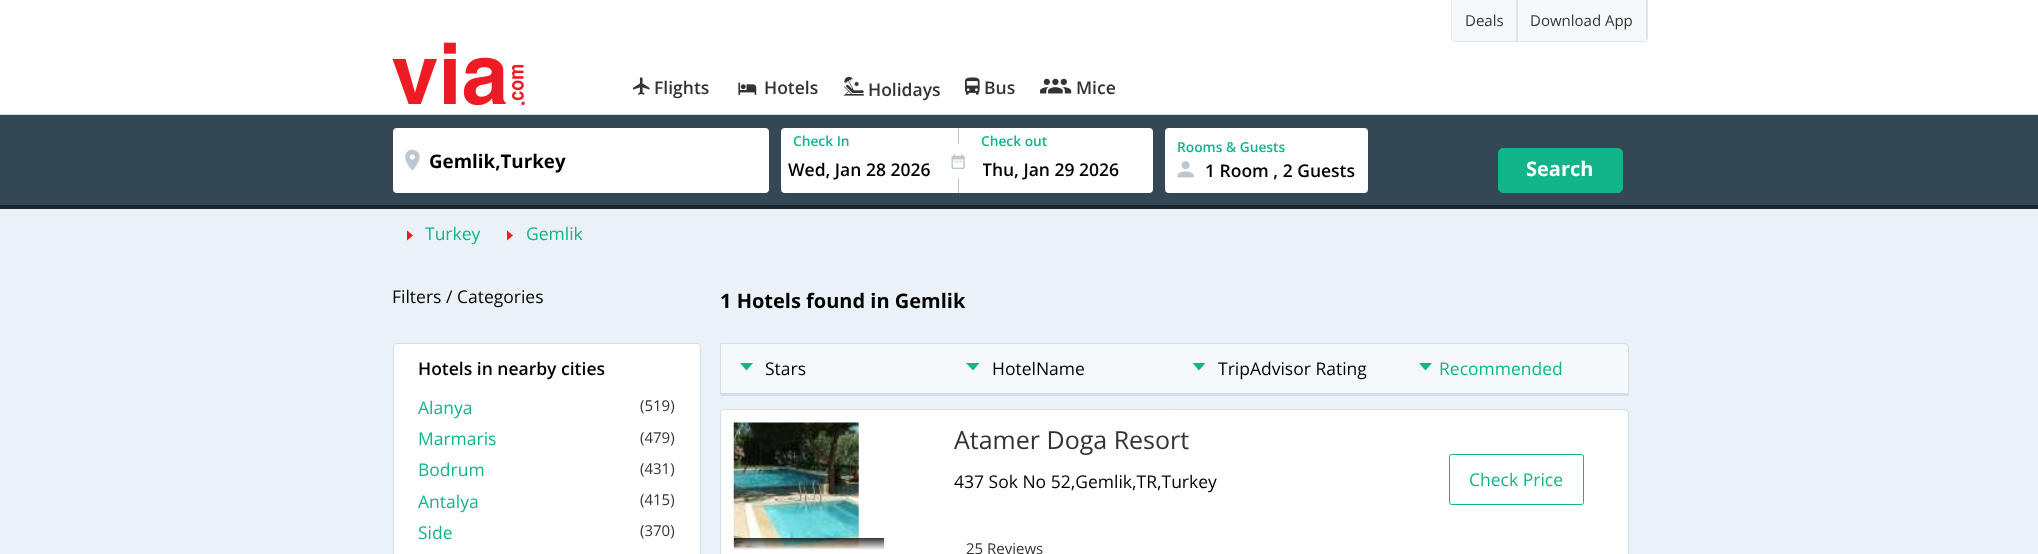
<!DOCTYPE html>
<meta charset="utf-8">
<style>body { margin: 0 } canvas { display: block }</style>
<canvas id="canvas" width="2038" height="554"></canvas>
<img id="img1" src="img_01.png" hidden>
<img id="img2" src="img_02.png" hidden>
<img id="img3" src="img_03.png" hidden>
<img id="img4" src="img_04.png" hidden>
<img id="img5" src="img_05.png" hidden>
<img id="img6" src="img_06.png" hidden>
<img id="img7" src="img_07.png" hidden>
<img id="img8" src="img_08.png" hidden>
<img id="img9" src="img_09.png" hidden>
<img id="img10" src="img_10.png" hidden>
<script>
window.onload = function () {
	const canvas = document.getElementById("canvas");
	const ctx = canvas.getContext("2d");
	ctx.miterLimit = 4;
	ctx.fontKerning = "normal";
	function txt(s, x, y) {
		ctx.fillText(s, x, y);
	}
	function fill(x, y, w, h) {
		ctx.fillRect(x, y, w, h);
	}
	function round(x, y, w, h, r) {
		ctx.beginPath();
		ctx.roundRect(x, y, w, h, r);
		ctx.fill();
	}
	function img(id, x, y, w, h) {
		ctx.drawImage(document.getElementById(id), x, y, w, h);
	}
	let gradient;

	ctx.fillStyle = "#EBF2F7";
	fill(0, 0, 2038, 554);
	ctx.fillStyle = "#FFFFFF";
	fill(0, 0, 2038, 114);
	ctx.fillStyle = "#D4DEE5";
	fill(0, 114, 2038, 1);
	ctx.fillStyle = "#F6F9FC";
	ctx.beginPath();
	ctx.roundRect(1453, 0, 63, 41, [0, 0, 0, 4]);
	ctx.fill();
	ctx.fillStyle = "#E0E5E7";
	ctx.beginPath();
	ctx.moveTo(1451, 0);
	ctx.lineTo(1518, 0);
	ctx.lineTo(1518, 42);
	ctx.lineTo(1456, 42);
	ctx.bezierCurveTo(1453, 42, 1451, 40, 1451, 38);
	ctx.closePath();
	ctx.moveTo(1452, 0);
	ctx.lineTo(1516, 0);
	ctx.lineTo(1516, 41);
	ctx.lineTo(1456, 41);
	ctx.bezierCurveTo(1454, 41, 1452, 40, 1452, 38);
	ctx.closePath();
	ctx.fill("evenodd");
	ctx.fillStyle = "#F6F9FC";
	ctx.beginPath();
	ctx.roundRect(1518, 0, 128, 41, [0, 0, 4, 0]);
	ctx.fill();
	ctx.fillStyle = "#E0E5E7";
	ctx.beginPath();
	ctx.moveTo(1518, 0);
	ctx.lineTo(1648, 0);
	ctx.lineTo(1648, 38);
	ctx.bezierCurveTo(1648, 40, 1645, 42, 1642, 42);
	ctx.lineTo(1518, 42);
	ctx.closePath();
	ctx.moveTo(1518, 0);
	ctx.lineTo(1646, 0);
	ctx.lineTo(1646, 38);
	ctx.bezierCurveTo(1646, 40, 1645, 41, 1642, 41);
	ctx.lineTo(1518, 41);
	ctx.closePath();
	ctx.fill("evenodd");
	img("img1", 392, 42, 133, 64);
	img("img2", 632, 77, 18, 18);
	img("img3", 738, 82, 19, 13);
	img("img4", 844, 76, 20, 20);
	img("img5", 965, 77, 15, 18);
	img("img6", 1040, 78, 32, 16);
	ctx.fillStyle = "#344755";
	fill(0, 115, 2038, 90);
	ctx.fillStyle = "#182732";
	fill(0, 205, 2038, 4);
	ctx.fillStyle = "#FFFFFF";
	round(393, 128, 376, 65, 4);
	img("img7", 405, 149, 15, 22);
	ctx.beginPath();
	ctx.roundRect(428.5, 128.5, 340, 64, 4.5);
	ctx.fill();
	ctx.strokeStyle = "#FFFFFF";
	ctx.stroke();
	round(781, 128, 372, 65, 4);
	ctx.fillStyle = "#BCC8D1";
	fill(958, 128, 1, 65);
	ctx.fillStyle = "#FFFFFF";
	fill(958, 144, 1, 34);
	img("img8", 951, 154, 14, 16);
	round(1165, 128, 203, 65, 4);
	img("img9", 1177, 161, 17, 17);
	ctx.fillStyle = "#12B58A";
	ctx.beginPath();
	ctx.roundRect(1498.5, 148.5, 124, 44, 4.5);
	ctx.fill();
	ctx.strokeStyle = "#12B58A";
	ctx.stroke();
	ctx.fillStyle = "#ED1C24";
	ctx.beginPath();
	ctx.moveTo(407, 240.5);
	ctx.lineTo(413, 235.5);
	ctx.lineTo(407, 230.5);
	ctx.closePath();
	ctx.fill();
	ctx.beginPath();
	ctx.moveTo(507, 240.5);
	ctx.lineTo(513, 235.5);
	ctx.lineTo(507, 230.5);
	ctx.closePath();
	ctx.fill();
	ctx.fillStyle = "#FFFFFF";
	ctx.beginPath();
	ctx.roundRect(393.5, 343.5, 307, 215, 3.5);
	ctx.fill();
	ctx.strokeStyle = "#D4DEE5";
	ctx.stroke();
	ctx.fillStyle = "#F6F9FC";
	ctx.beginPath();
	ctx.roundRect(721, 344, 907, 49, [0, 4, 0, 0]);
	ctx.fill();
	ctx.beginPath();
	ctx.roundRect(720.5, 343.5, 908, 52, [0, 4.5, 0, 0]);
	ctx.stroke();
	ctx.fillStyle = "#D4DEE5";
	fill(720, 393, 909, 2);
	ctx.fillStyle = "#12B58A";
	ctx.beginPath();
	ctx.moveTo(753, 363);
	ctx.lineTo(746.5, 370.5);
	ctx.lineTo(740, 363);
	ctx.closePath();
	ctx.fill();
	ctx.beginPath();
	ctx.moveTo(979.5, 363);
	ctx.lineTo(973, 370.5);
	ctx.lineTo(966, 363);
	ctx.closePath();
	ctx.fill();
	ctx.beginPath();
	ctx.moveTo(1205.5, 363);
	ctx.lineTo(1199, 370.5);
	ctx.lineTo(1192.5, 363);
	ctx.closePath();
	ctx.fill();
	ctx.beginPath();
	ctx.moveTo(1432, 363);
	ctx.lineTo(1425.5, 370.5);
	ctx.lineTo(1419, 363);
	ctx.closePath();
	ctx.fill();
	ctx.fillStyle = "#FFFFFF";
	ctx.beginPath();
	ctx.roundRect(720.5, 409.5, 908, 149, 3.5);
	ctx.fill();
	ctx.stroke();
	img("img10", 733, 422, 126, 126);
	gradient = ctx.createLinearGradient(809, 538, 809, 550);
	gradient.addColorStop(0, "rgba(0, 0, 0, 0.8)");
	gradient.addColorStop(1, "rgba(0, 0, 0, 0)");
	ctx.fillStyle = gradient;
	fill(734, 538, 150, 12);
	ctx.beginPath();
	ctx.roundRect(1449.5, 454.5, 134, 50, 2);
	ctx.strokeStyle = "#12B58A";
	ctx.stroke();
	ctx.font = "15px Open Sans";
	ctx.fillStyle = "#333333";
	txt("Deals", 1465, 26);
	txt("Download App", 1530, 26);
	ctx.font = "600 17.5px Open Sans";
	txt("Flights", 654, 94);
	txt("Hotels", 764, 94);
	txt("Holidays", 868, 96);
	txt("Bus", 984, 94);
	txt("Mice", 1076, 94);
	ctx.font = "bold 18.75px Open Sans";
	ctx.fillStyle = "#000000";
	txt("Gemlik,Turkey", 429, 168);
	ctx.font = "600 13.75px Open Sans";
	ctx.fillStyle = "#12B58A";
	txt("Check In", 793, 146);
	ctx.font = "600 17.5px Open Sans";
	ctx.fillStyle = "#000000";
	txt("Wed, Jan 28 2026", 788, 176);
	ctx.font = "600 13.75px Open Sans";
	ctx.fillStyle = "#12B58A";
	txt("Check out", 981, 146);
	ctx.save();
	ctx.beginPath();
	ctx.rect(983, 158, 162, 23);
	ctx.clip();
	ctx.font = "600 17.5px Open Sans";
	ctx.fillStyle = "#000000";
	txt("Thu, Jan 29 2026", 982, 176);
	ctx.restore();
	txt("Rooms & Guests", 1177, 152);
	ctx.font = "600 17.5px Open Sans";
	ctx.fillStyle = "#000000";
	txt("1 Room , 2 Guests", 1205, 177);
	ctx.font = "bold 20px Open Sans";
	ctx.fillStyle = "#FFFFFF";
	txt("Search", 1526, 176);
	ctx.font = "17.5px Open Sans";
	ctx.fillStyle = "#12B58A";
	txt("Turkey", 425, 240);
	txt("Gemlik", 526, 240);
	ctx.fillStyle = "#000000";
	txt("Filters / Categories", 392, 303);
	ctx.font = "bold 20px Open Sans";
	txt("1 Hotels found in Gemlik", 720, 308);
	ctx.font = "600 17.5px Open Sans";
	txt("Hotels in nearby cities", 418, 375);
	ctx.font = "17.5px Open Sans";
	ctx.fillStyle = "#12B58A";
	txt("Alanya", 418, 414);
	ctx.font = "15px Open Sans";
	ctx.fillStyle = "#333333";
	txt("(519)", 640, 411);
	ctx.font = "17.5px Open Sans";
	ctx.fillStyle = "#12B58A";
	txt("Marmaris", 418, 445);
	ctx.font = "15px Open Sans";
	ctx.fillStyle = "#333333";
	txt("(479)", 640, 443);
	ctx.font = "17.5px Open Sans";
	ctx.fillStyle = "#12B58A";
	txt("Bodrum", 418, 476);
	ctx.font = "15px Open Sans";
	ctx.fillStyle = "#333333";
	txt("(431)", 640, 474);
	ctx.font = "17.5px Open Sans";
	ctx.fillStyle = "#12B58A";
	txt("Antalya", 418, 508);
	ctx.font = "15px Open Sans";
	ctx.fillStyle = "#333333";
	txt("(415)", 640, 505);
	ctx.font = "17.5px Open Sans";
	ctx.fillStyle = "#12B58A";
	txt("Side", 418, 539);
	ctx.font = "15px Open Sans";
	ctx.fillStyle = "#333333";
	txt("(370)", 640, 536);
	ctx.font = "17.5px Open Sans";
	ctx.fillStyle = "#000000";
	txt("Stars", 765, 375);
	txt("HotelName", 992, 375);
	txt("TripAdvisor Rating", 1218, 375);
	ctx.fillStyle = "#12B58A";
	txt("Recommended", 1439, 375);
	ctx.font = "25px Open Sans";
	ctx.fillStyle = "#333333";
	txt("Atamer Doga Resort", 954, 449);
	ctx.font = "17.5px Open Sans";
	ctx.fillStyle = "#000000";
	txt("437 Sok No 52,Gemlik,TR,Turkey", 954, 488);
	ctx.font = "15px Open Sans";
	ctx.fillStyle = "#333333";
	txt("25 Reviews", 966, 554);
	ctx.font = "17.5px Open Sans";
	ctx.fillStyle = "#12B58A";
	txt("Check Price", 1469, 486);
};
</script>
